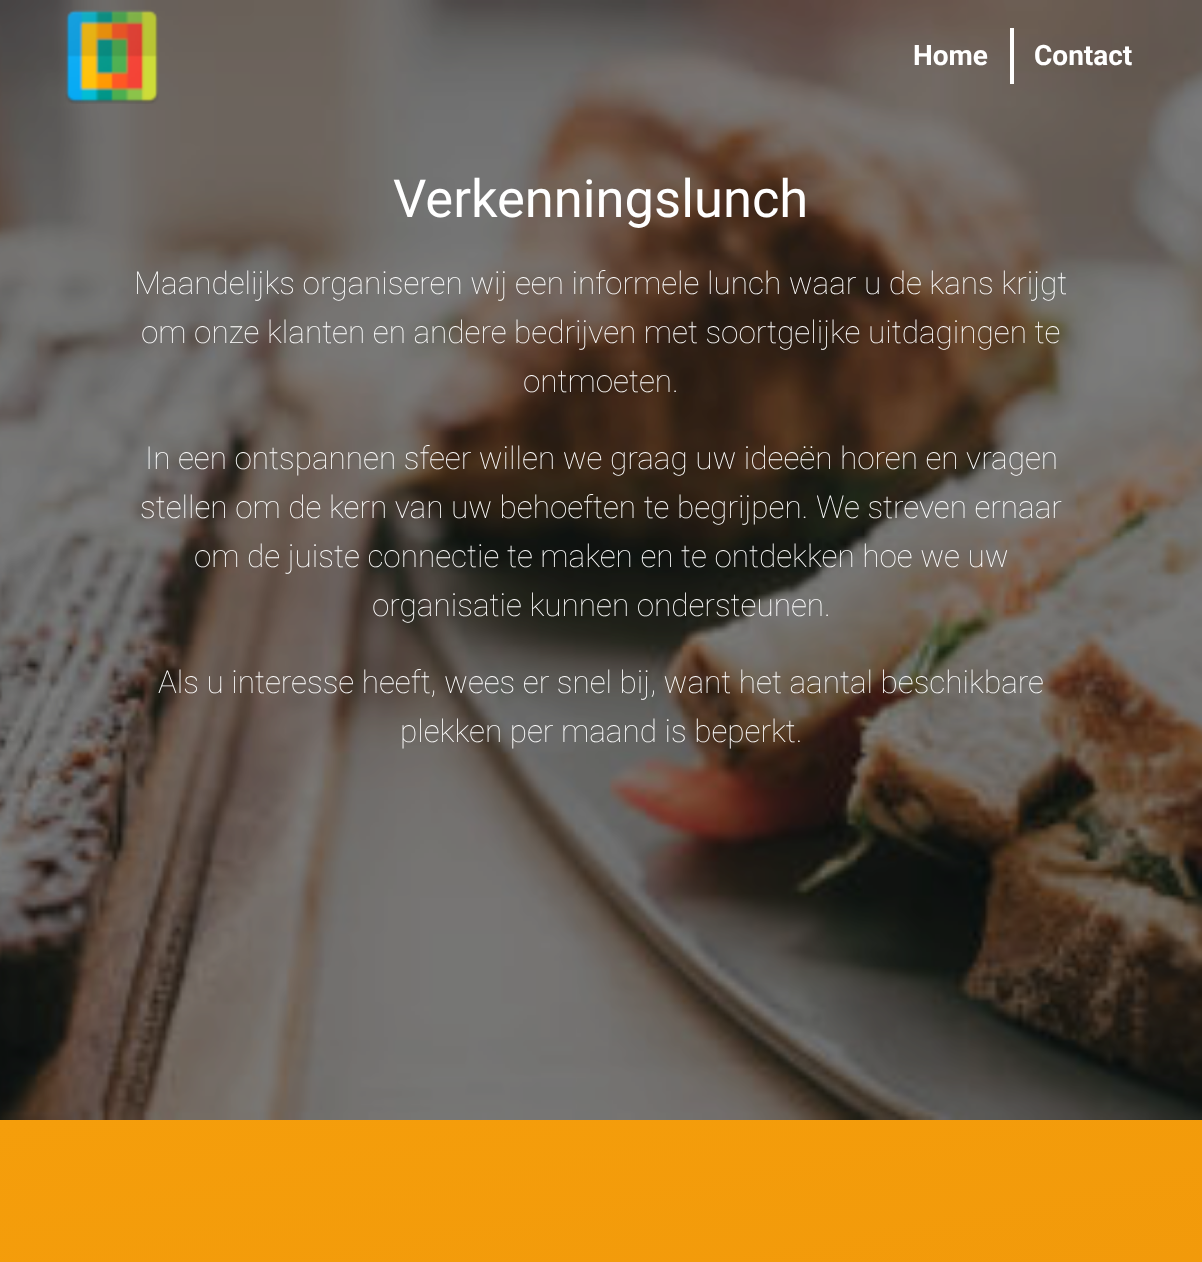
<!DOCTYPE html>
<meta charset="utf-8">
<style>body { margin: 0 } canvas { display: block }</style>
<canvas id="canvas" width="1202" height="1262"></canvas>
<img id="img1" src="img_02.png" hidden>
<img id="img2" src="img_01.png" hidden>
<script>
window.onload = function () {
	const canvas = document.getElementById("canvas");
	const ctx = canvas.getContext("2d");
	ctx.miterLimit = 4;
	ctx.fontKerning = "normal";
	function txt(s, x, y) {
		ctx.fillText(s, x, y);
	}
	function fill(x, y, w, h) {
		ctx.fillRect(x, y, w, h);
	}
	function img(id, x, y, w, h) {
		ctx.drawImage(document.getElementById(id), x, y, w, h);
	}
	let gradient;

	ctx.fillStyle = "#FFFFFF";
	fill(0, 0, 1202, 1262);
	img("img1", 0, 0, 1202, 1120);
	img("img2", 65, 9, 94, 95);
	fill(1010, 28, 4, 56);
	gradient = ctx.createLinearGradient(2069, 718, 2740, 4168);
	gradient.addColorStop(0, "#F59E0B");
	gradient.addColorStop(1, "#D97706");
	ctx.fillStyle = gradient;
	fill(0, 1120, 1202, 142);
	ctx.font = "bold 28px Roboto";
	ctx.fillStyle = "#FFFFFF";
	txt("Home", 913, 65);
	txt("Contact", 1034, 65);
	ctx.font = "52.5px Roboto";
	txt("Verkenningslunch", 393, 217);
	ctx.font = "100 31.5px Roboto";
	txt("Maandelijks organiseren wij een informele lunch waar u de kans krijgt", 134, 294);
	txt("om onze klanten en andere bedrijven met soortgelijke uitdagingen te", 141, 343);
	txt("ontmoeten.", 523, 392);
	txt("In een ontspannen sfeer willen we graag uw ideeën horen en vragen", 145, 469);
	txt("stellen om de kern van uw behoeften te begrijpen. We streven ernaar", 140, 518);
	txt("om de juiste connectie te maken en te ontdekken hoe we uw", 194, 567);
	txt("organisatie kunnen ondersteunen.", 372, 616);
	txt("Als u interesse heeft, wees er snel bij, want het aantal beschikbare", 158, 693);
	txt("plekken per maand is beperkt.", 400, 742);
};
</script>
